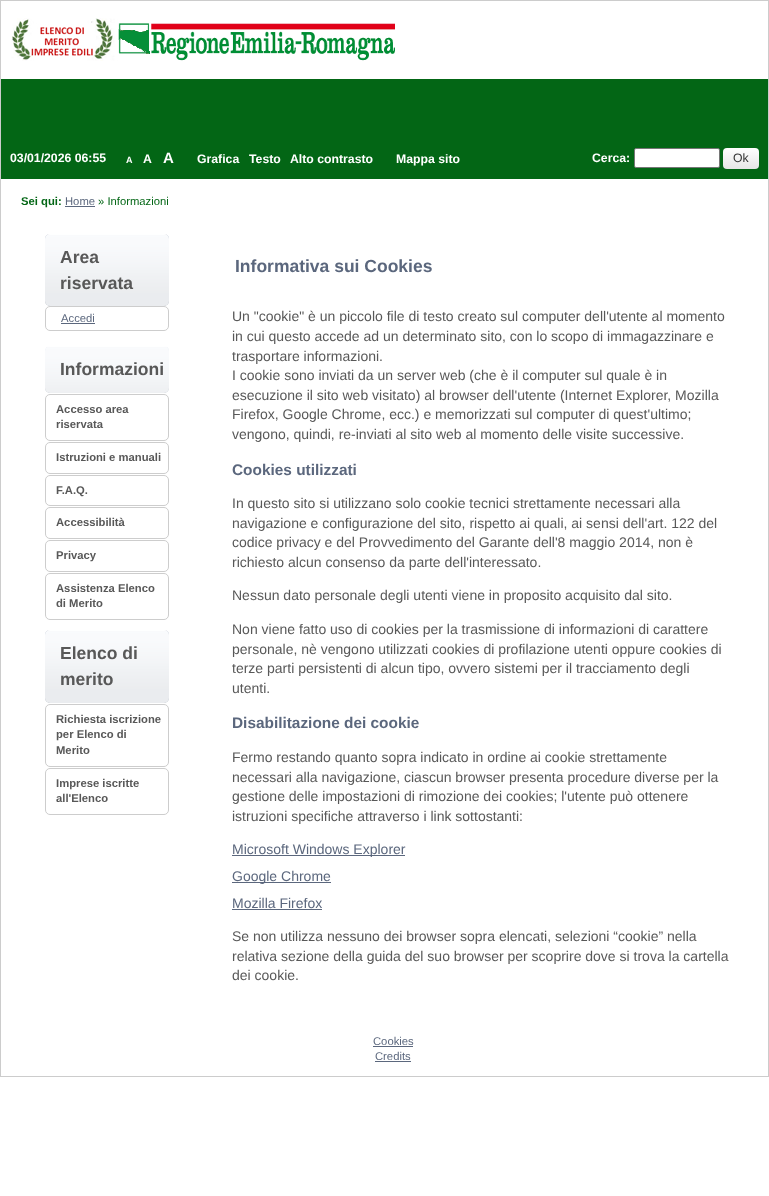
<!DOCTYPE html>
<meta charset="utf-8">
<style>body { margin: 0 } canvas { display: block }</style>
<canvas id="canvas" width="769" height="1196"></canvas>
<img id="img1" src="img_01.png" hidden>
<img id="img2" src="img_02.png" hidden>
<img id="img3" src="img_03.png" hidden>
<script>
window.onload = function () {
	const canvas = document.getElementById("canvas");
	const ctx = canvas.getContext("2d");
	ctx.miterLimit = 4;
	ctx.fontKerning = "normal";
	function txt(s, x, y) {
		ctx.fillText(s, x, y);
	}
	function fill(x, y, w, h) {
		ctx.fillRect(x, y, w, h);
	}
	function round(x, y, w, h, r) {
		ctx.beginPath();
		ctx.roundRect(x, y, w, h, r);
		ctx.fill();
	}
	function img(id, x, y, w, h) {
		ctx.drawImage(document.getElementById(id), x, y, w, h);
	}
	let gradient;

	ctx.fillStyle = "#FFFFFF";
	fill(0, 0, 769, 1196);
	ctx.strokeStyle = "#CCCCCC";
	ctx.strokeRect(0.5, 0.5, 768, 1076);
	img("img1", 11, 18, 384, 43);
	ctx.fillStyle = "#036615";
	fill(1, 79, 767, 100);
	ctx.fillStyle = "#FFFFFF";
	ctx.beginPath();
	ctx.roundRect(634.5, 148.5, 85, 19, 1.5);
	ctx.fill();
	ctx.strokeStyle = "#767676";
	ctx.stroke();
	gradient = ctx.createLinearGradient(741, 148, 741, 169);
	gradient.addColorStop(0, "#FFFFFF");
	gradient.addColorStop(1, "#E6E6E6");
	ctx.fillStyle = gradient;
	round(723, 148, 36, 21, 4);
	ctx.fillStyle = "#5B677D";
	fill(65, 206, 30, 1);
	ctx.fillStyle = "#97A1AE";
	round(45, 234, 124, 72, 5);
	img("img2", 45, 234, 124, 59);
	ctx.fillStyle = "rgba(255, 255, 255, 0.8)";
	round(45, 234, 124, 72, 5);
	ctx.beginPath();
	ctx.roundRect(45.5, 306.5, 123, 24, 4.5);
	ctx.strokeStyle = "#CDCDCD";
	ctx.stroke();
	ctx.fillStyle = "#5B677D";
	fill(61, 323, 34, 1);
	img("img3", 45, 346, 124, 47);
	ctx.fillStyle = "rgba(255, 255, 255, 0.8)";
	round(45, 346, 124, 47, 5);
	ctx.beginPath();
	ctx.roundRect(45.5, 394.5, 123, 46, 4.5);
	ctx.stroke();
	ctx.beginPath();
	ctx.roundRect(45.5, 442.5, 123, 31, 4.5);
	ctx.stroke();
	ctx.beginPath();
	ctx.roundRect(45.5, 475.5, 123, 30, 4.5);
	ctx.stroke();
	ctx.beginPath();
	ctx.roundRect(45.5, 507.5, 123, 31, 4.5);
	ctx.stroke();
	ctx.beginPath();
	ctx.roundRect(45.5, 540.5, 123, 31, 4.5);
	ctx.stroke();
	ctx.beginPath();
	ctx.roundRect(45.5, 573.5, 123, 46, 4.5);
	ctx.stroke();
	ctx.fillStyle = "#97A1AE";
	round(45, 630, 124, 73, 5);
	img("img2", 45, 630, 124, 59);
	ctx.fillStyle = "rgba(255, 255, 255, 0.8)";
	round(45, 630, 124, 73, 5);
	ctx.beginPath();
	ctx.roundRect(45.5, 704.5, 123, 62, 4.5);
	ctx.stroke();
	ctx.beginPath();
	ctx.roundRect(45.5, 768.5, 123, 46, 4.5);
	ctx.stroke();
	ctx.fillStyle = "#5B677D";
	fill(232, 855, 173, 1);
	fill(232, 882, 99, 1);
	fill(232, 909, 90, 1);
	fill(373, 1046, 40, 1);
	fill(375, 1061, 36, 1);
	ctx.font = "bold 9px Liberation Sans";
	ctx.fillStyle = "#FFFFFF";
	txt("A", 126, 163);
	ctx.font = "bold 12.25px Liberation Sans";
	txt("A", 143, 163);
	ctx.font = "bold 15px Liberation Sans";
	txt("A", 163, 163);
	ctx.font = "bold 12.25px Liberation Sans";
	txt("Grafica", 197, 163);
	txt("Testo", 249, 163);
	txt("Alto contrasto", 290, 163);
	txt("Mappa sito", 396, 163);
	txt("03/01/2026 06:55", 10, 162);
	txt("Cerca:", 592, 162);
	ctx.font = "12.25px Liberation Sans";
	ctx.fillStyle = "#333333";
	txt("Ok", 733, 162);
	ctx.font = "bold 11.25px Liberation Sans";
	ctx.fillStyle = "#036615";
	txt("Sei qui:", 21, 205);
	ctx.font = "11.25px Liberation Sans";
	ctx.fillStyle = "#5B677D";
	txt("Home", 65, 205);
	ctx.fillStyle = "#036615";
	txt("» Informazioni", 98, 205);
	ctx.font = "bold 17.5px Liberation Sans";
	ctx.fillStyle = "#585858";
	txt("Area", 60, 263);
	txt("riservata", 60, 289);
	ctx.font = "11.25px Liberation Sans";
	ctx.fillStyle = "#5B677D";
	txt("Accedi", 61, 322);
	ctx.font = "bold 17.5px Liberation Sans";
	ctx.fillStyle = "#585858";
	txt("Informazioni", 60, 375);
	ctx.font = "bold 11.25px Liberation Sans";
	txt("Accesso area", 56, 413);
	txt("riservata", 56, 428);
	txt("Istruzioni e manuali", 56, 461);
	txt("F.A.Q.", 56, 494);
	txt("Accessibilità", 56, 526);
	txt("Privacy", 56, 559);
	txt("Assistenza Elenco", 56, 592);
	txt("di Merito", 56, 607);
	ctx.font = "bold 17.5px Liberation Sans";
	txt("Elenco di", 60, 659);
	txt("merito", 60, 685);
	ctx.font = "bold 11.25px Liberation Sans";
	txt("Richiesta iscrizione", 56, 723);
	txt("per Elenco di", 56, 738);
	txt("Merito", 56, 754);
	txt("Imprese iscritte", 56, 787);
	txt("all'Elenco", 56, 802);
	ctx.font = "bold 17.5px Liberation Sans";
	ctx.fillStyle = "#5B677D";
	txt("Informativa sui Cookies", 235, 272);
	ctx.font = "14px Liberation Sans";
	ctx.fillStyle = "#585858";
	txt("Un \"cookie\" è un piccolo file di testo creato sul computer dell'utente al momento", 232, 321);
	txt("in cui questo accede ad un determinato sito, con lo scopo di immagazzinare e", 232, 341);
	txt("trasportare informazioni.", 232, 361);
	txt("I cookie sono inviati da un server web (che è il computer sul quale è in", 232, 380);
	txt("esecuzione il sito web visitato) al browser dell'utente (Internet Explorer, Mozilla", 232, 400);
	txt("Firefox, Google Chrome, ecc.) e memorizzati sul computer di quest'ultimo;", 232, 419);
	txt("vengono, quindi, re-inviati al sito web al momento delle visite successive.", 232, 439);
	ctx.font = "bold 15.4px Liberation Sans";
	ctx.fillStyle = "#5B677D";
	txt("Cookies utilizzati", 232, 475);
	ctx.font = "14px Liberation Sans";
	ctx.fillStyle = "#585858";
	txt("In questo sito si utilizzano solo cookie tecnici strettamente necessari alla", 232, 508);
	txt("navigazione e configurazione del sito, rispetto ai quali, ai sensi dell'art. 122 del", 232, 528);
	txt("codice privacy e del Provvedimento del Garante dell'8 maggio 2014, non è", 232, 547);
	txt("richiesto alcun consenso da parte dell'interessato.", 232, 567);
	txt("Nessun dato personale degli utenti viene in proposito acquisito dal sito.", 232, 600);
	txt("Non viene fatto uso di cookies per la trasmissione di informazioni di carattere", 232, 634);
	txt("personale, nè vengono utilizzati cookies di profilazione utenti oppure cookies di", 232, 654);
	txt("terze parti persistenti di alcun tipo, ovvero sistemi per il tracciamento degli", 232, 673);
	txt("utenti.", 232, 693);
	ctx.font = "bold 15.4px Liberation Sans";
	ctx.fillStyle = "#5B677D";
	txt("Disabilitazione dei cookie", 232, 728);
	ctx.font = "14px Liberation Sans";
	ctx.fillStyle = "#585858";
	txt("Fermo restando quanto sopra indicato in ordine ai cookie strettamente", 232, 762);
	txt("necessari alla navigazione, ciascun browser presenta procedure diverse per la", 232, 782);
	txt("gestione delle impostazioni di rimozione dei cookies; l'utente può ottenere", 232, 801);
	txt("istruzioni specifiche attraverso i link sottostanti:", 232, 821);
	ctx.fillStyle = "#5B677D";
	txt("Microsoft Windows Explorer", 232, 854);
	txt("Google Chrome", 232, 881);
	txt("Mozilla Firefox", 232, 908);
	ctx.fillStyle = "#585858";
	txt("Se non utilizza nessuno dei browser sopra elencati, selezioni “cookie” nella", 232, 941);
	txt("relativa sezione della guida del suo browser per scoprire dove si trova la cartella", 232, 961);
	txt("dei cookie.", 232, 980);
	ctx.font = "11.25px Liberation Sans";
	ctx.fillStyle = "#5B677D";
	txt("Cookies", 373, 1045);
	txt("Credits", 375, 1060);
};
</script>
